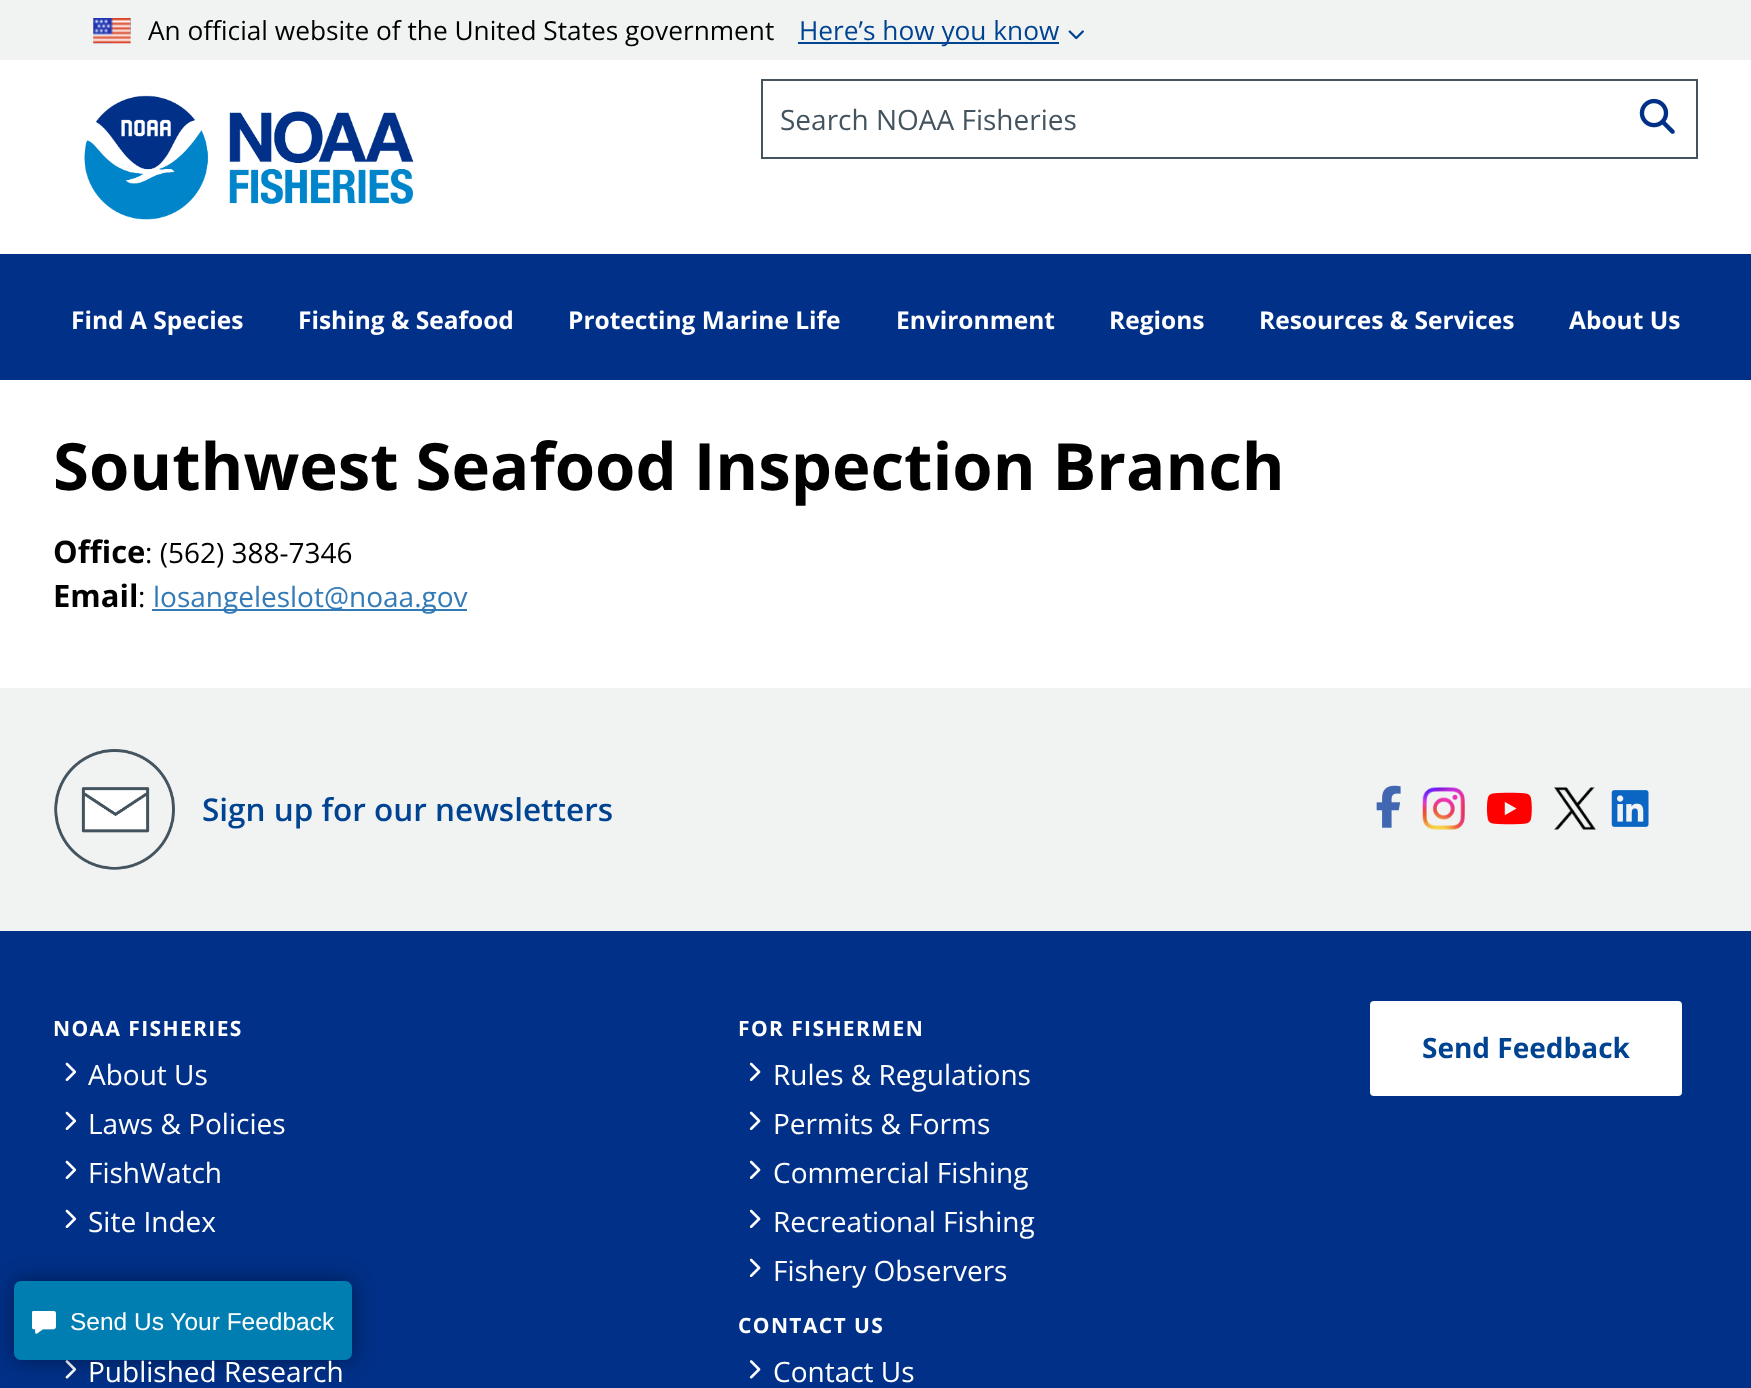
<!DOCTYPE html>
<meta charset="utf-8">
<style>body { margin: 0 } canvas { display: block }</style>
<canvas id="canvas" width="1751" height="1388"></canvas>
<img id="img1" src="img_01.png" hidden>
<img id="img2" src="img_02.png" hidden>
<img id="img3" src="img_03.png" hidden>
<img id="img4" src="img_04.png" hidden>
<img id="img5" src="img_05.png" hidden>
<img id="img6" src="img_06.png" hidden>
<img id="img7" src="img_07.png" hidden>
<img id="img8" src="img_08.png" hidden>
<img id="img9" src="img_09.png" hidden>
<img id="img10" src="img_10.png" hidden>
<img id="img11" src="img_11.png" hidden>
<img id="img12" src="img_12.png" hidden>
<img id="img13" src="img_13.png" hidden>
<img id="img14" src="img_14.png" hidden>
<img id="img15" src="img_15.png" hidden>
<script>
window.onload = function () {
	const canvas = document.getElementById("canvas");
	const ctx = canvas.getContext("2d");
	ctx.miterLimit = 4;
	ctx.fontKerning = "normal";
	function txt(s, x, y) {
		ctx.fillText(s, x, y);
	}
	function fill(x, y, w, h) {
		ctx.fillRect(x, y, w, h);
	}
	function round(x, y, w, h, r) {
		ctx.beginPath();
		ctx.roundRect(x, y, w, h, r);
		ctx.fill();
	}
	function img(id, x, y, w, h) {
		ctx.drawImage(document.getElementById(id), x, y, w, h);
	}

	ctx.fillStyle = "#FFFFFF";
	fill(0, 0, 1751, 1388);
	ctx.fillStyle = "#F1F3F3";
	fill(0, 0, 1751, 60);
	img("img1", 93, 18, 38, 26);
	ctx.fillStyle = "#004391";
	fill(798, 42, 261, 2);
	img("img2", 1068, 30, 16, 10);
	img("img3", 84, 95, 330, 125);
	ctx.strokeStyle = "#44545F";
	ctx.lineWidth = 2;
	ctx.strokeRect(762, 80, 935, 78);
	img("img4", 1639, 98, 36, 36);
	ctx.fillStyle = "#003087";
	fill(0, 254, 1751, 126);
	ctx.fillStyle = "#337AB7";
	fill(152, 609, 315, 2);
	ctx.fillStyle = "#F1F3F3";
	fill(0, 688, 1751, 243);
	img("img5", 54, 749, 121, 121);
	img("img6", 1376, 785, 25, 43);
	img("img7", 1422, 787, 43, 43);
	img("img8", 1487, 792, 45, 33);
	img("img9", 1554, 787, 42, 43);
	img("img10", 1611, 790, 38, 37);
	ctx.fillStyle = "#003087";
	fill(0, 931, 1751, 457);
	img("img11", 65, 1062, 12, 19);
	img("img11", 65, 1111, 12, 19);
	img("img11", 65, 1160, 12, 19);
	img("img11", 65, 1209, 12, 19);
	img("img12", 749, 1062, 12, 19);
	img("img12", 749, 1111, 12, 19);
	img("img12", 749, 1160, 12, 19);
	img("img12", 749, 1209, 12, 19);
	img("img12", 749, 1258, 12, 19);
	img("img13", 65, 1360, 12, 19);
	img("img14", 749, 1360, 12, 19);
	ctx.fillStyle = "#FFFFFF";
	round(1370, 1001, 312, 95, 4);
	ctx.fillStyle = "rgba(0, 0, 0, 0.4)";
	ctx.filter = "blur(11px)";
	ctx.beginPath();
	ctx.roundRect(14, 1281, 338, 79, 7);
	ctx.fill();
	ctx.filter = "none";
	ctx.fillStyle = "#007EB2";
	round(14, 1281, 338, 79, 7);
	img("img15", 32, 1311, 24, 23);
	ctx.font = "26.25px Open Sans";
	ctx.fillStyle = "#000000";
	txt("An official website of the United States government", 148, 40);
	ctx.fillStyle = "#004391";
	txt("Here’s how you know", 799, 40);
	ctx.font = "28px Open Sans";
	ctx.fillStyle = "#44545F";
	txt("Search NOAA Fisheries", 780, 130);
	ctx.font = "bold 24.5px Open Sans";
	ctx.fillStyle = "#FFFFFF";
	txt("Find A Species", 71, 329);
	txt("Fishing & Seafood", 298, 329);
	txt("Protecting Marine Life", 568, 329);
	txt("Environment", 896, 329);
	txt("Regions", 1109, 329);
	txt("Resources & Services", 1259, 329);
	txt("About Us", 1569, 329);
	ctx.font = "bold 65.25px Open Sans";
	ctx.fillStyle = "#000000";
	txt("Southwest Seafood Inspection Branch", 53, 490);
	ctx.font = "bold 31px Open Sans";
	txt("Office", 53, 563);
	ctx.font = "28px Open Sans";
	txt(": (562) 388-7346", 145, 563);
	ctx.font = "bold 31px Open Sans";
	txt("Email", 53, 607);
	ctx.font = "28px Open Sans";
	txt(":", 138, 607);
	ctx.fillStyle = "#337AB7";
	txt("losangeleslot@noaa.gov", 153, 607);
	ctx.font = "600 31.5px Open Sans";
	ctx.fillStyle = "#004391";
	txt("Sign up for our newsletters", 202, 821);
	ctx.letterSpacing = "1.4px";
	ctx.font = "bold 21px Open Sans";
	ctx.fillStyle = "#FFFFFF";
	txt("NOAA FISHERIES", 53, 1036);
	ctx.letterSpacing = "0px";
	ctx.font = "28px Open Sans";
	txt("About Us", 88, 1085);
	txt("Laws & Policies", 88, 1134);
	txt("FishWatch", 88, 1183);
	txt("Site Index", 88, 1232);
	ctx.letterSpacing = "1.4px";
	ctx.font = "bold 21px Open Sans";
	txt("FOR FISHERMEN", 738, 1036);
	ctx.letterSpacing = "0px";
	ctx.font = "28px Open Sans";
	txt("Rules & Regulations", 773, 1085);
	txt("Permits & Forms", 773, 1134);
	txt("Commercial Fishing", 773, 1183);
	txt("Recreational Fishing", 773, 1232);
	txt("Fishery Observers", 773, 1281);
	txt("Published Research", 88, 1382);
	ctx.letterSpacing = "1.4px";
	ctx.font = "bold 21px Open Sans";
	txt("CONTACT US", 738, 1333);
	ctx.letterSpacing = "0px";
	ctx.font = "28px Open Sans";
	txt("Contact Us", 773, 1382);
	ctx.font = "bold 28px Open Sans";
	ctx.fillStyle = "#004391";
	txt("Send Feedback", 1422, 1058);
	ctx.font = "24.5px Liberation Sans";
	ctx.fillStyle = "#FFFFFF";
	txt("Send Us Your Feedback", 70, 1330);
};
</script>
